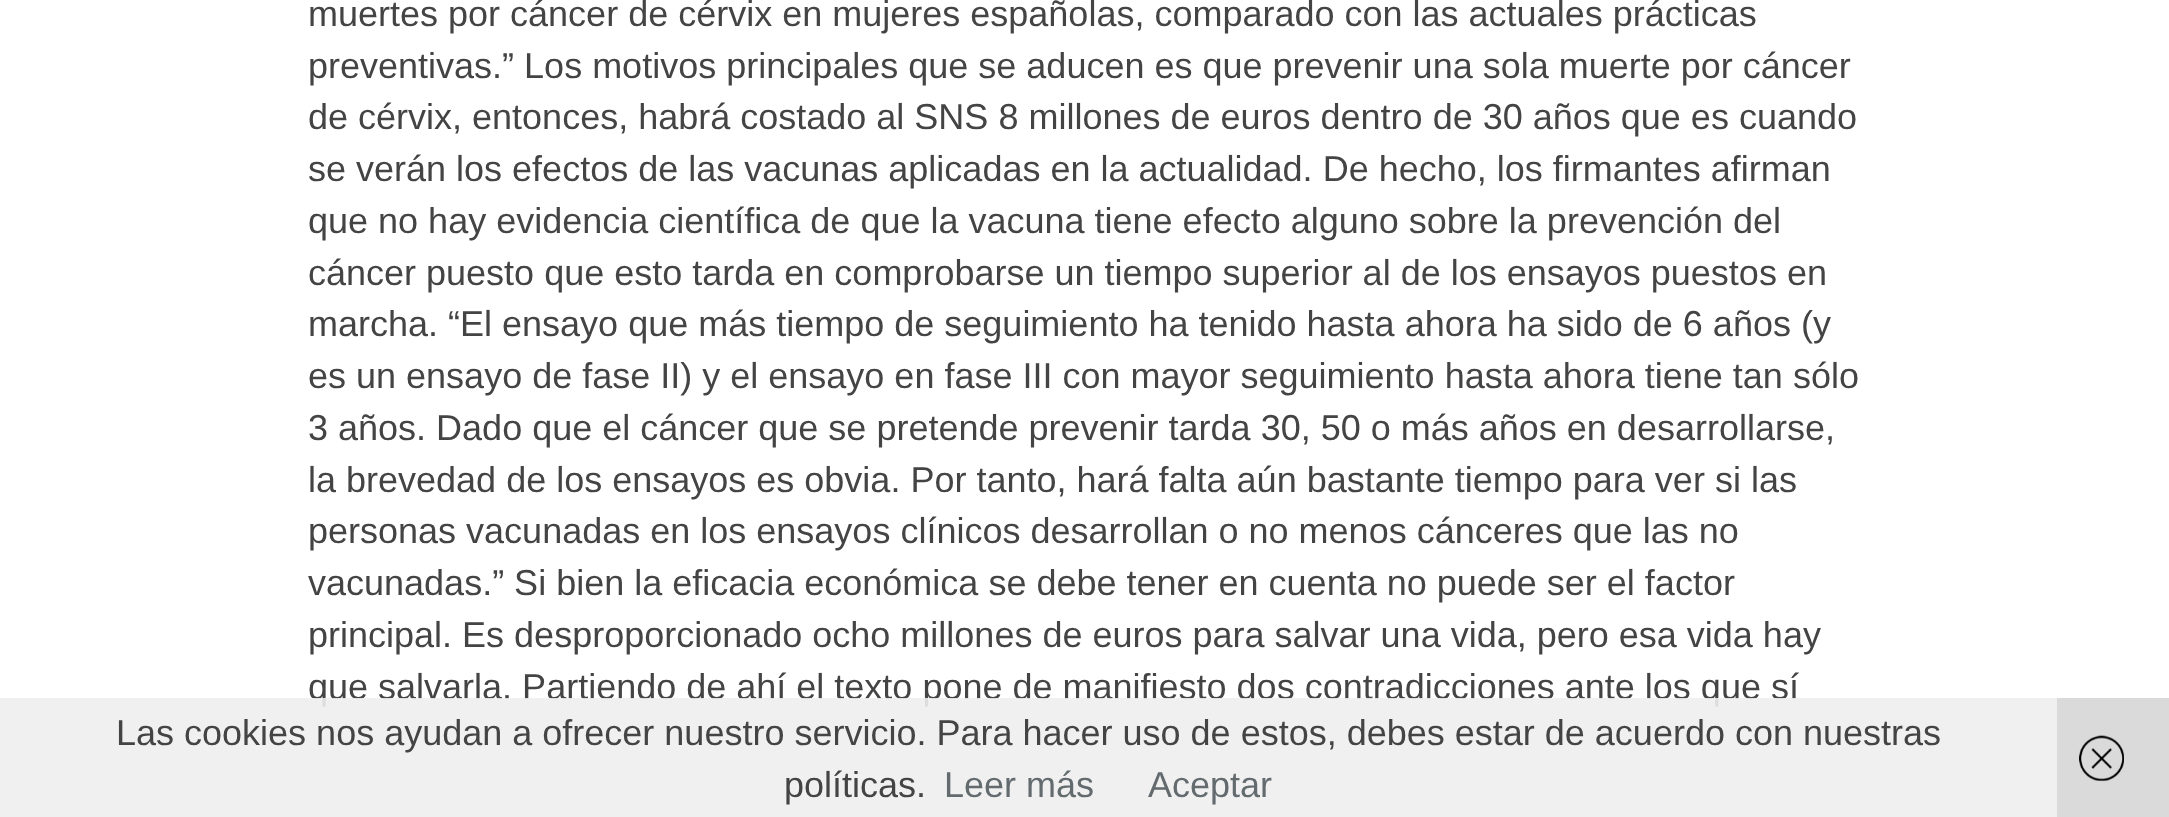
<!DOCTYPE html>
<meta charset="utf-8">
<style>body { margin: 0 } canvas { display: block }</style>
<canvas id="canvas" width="2169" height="817"></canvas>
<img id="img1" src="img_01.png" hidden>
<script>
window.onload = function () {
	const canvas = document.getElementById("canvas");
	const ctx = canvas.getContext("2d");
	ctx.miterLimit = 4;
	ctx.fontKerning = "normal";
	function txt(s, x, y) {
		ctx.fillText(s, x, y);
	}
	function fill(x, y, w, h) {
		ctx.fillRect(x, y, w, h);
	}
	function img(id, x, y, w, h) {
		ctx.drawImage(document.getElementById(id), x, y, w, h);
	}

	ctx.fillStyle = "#FFFFFF";
	fill(0, 0, 2169, 817);
	ctx.fillStyle = "#DADADA";
	fill(2057, 698, 112, 119);
	img("img1", 2079, 735, 45, 47);
	ctx.font = "36px Liberation Sans";
	ctx.fillStyle = "#444444";
	txt("muertes por cáncer de cérvix en mujeres españolas, comparado con las actuales prácticas", 308, 26);
	txt("preventivas.” Los motivos principales que se aducen es que prevenir una sola muerte por cáncer", 308, 78);
	txt("de cérvix, entonces, habrá costado al SNS 8 millones de euros dentro de 30 años que es cuando", 308, 129);
	txt("se verán los efectos de las vacunas aplicadas en la actualidad. De hecho, los firmantes afirman", 308, 181);
	txt("que no hay evidencia científica de que la vacuna tiene efecto alguno sobre la prevención del", 308, 233);
	txt("cáncer puesto que esto tarda en comprobarse un tiempo superior al de los ensayos puestos en", 308, 285);
	txt("marcha. “El ensayo que más tiempo de seguimiento ha tenido hasta ahora ha sido de 6 años (y", 308, 336);
	txt("es un ensayo de fase II) y el ensayo en fase III con mayor seguimiento hasta ahora tiene tan sólo", 308, 388);
	txt("3 años. Dado que el cáncer que se pretende prevenir tarda 30, 50 o más años en desarrollarse,", 308, 440);
	txt("la brevedad de los ensayos es obvia. Por tanto, hará falta aún bastante tiempo para ver si las", 308, 492);
	txt("personas vacunadas en los ensayos clínicos desarrollan o no menos cánceres que las no", 308, 543);
	txt("vacunadas.” Si bien la eficacia económica se debe tener en cuenta no puede ser el factor", 308, 595);
	txt("principal. Es desproporcionado ocho millones de euros para salvar una vida, pero esa vida hay", 308, 647);
	txt("que salvarla. Partiendo de ahí el texto pone de manifiesto dos contradicciones ante los que sí", 308, 699);
	ctx.fillStyle = "rgba(238, 238, 238, 0.9)";
	fill(0, 698, 2057, 119);
	ctx.fillStyle = "#444444";
	txt("Las cookies nos ayudan a ofrecer nuestro servicio. Para hacer uso de estos, debes estar de acuerdo con nuestras", 116, 745);
	txt("políticas.", 784, 797);
	ctx.fillStyle = "#636B6F";
	txt("Leer más", 944, 797);
	txt("Aceptar", 1148, 797);
};
</script>
